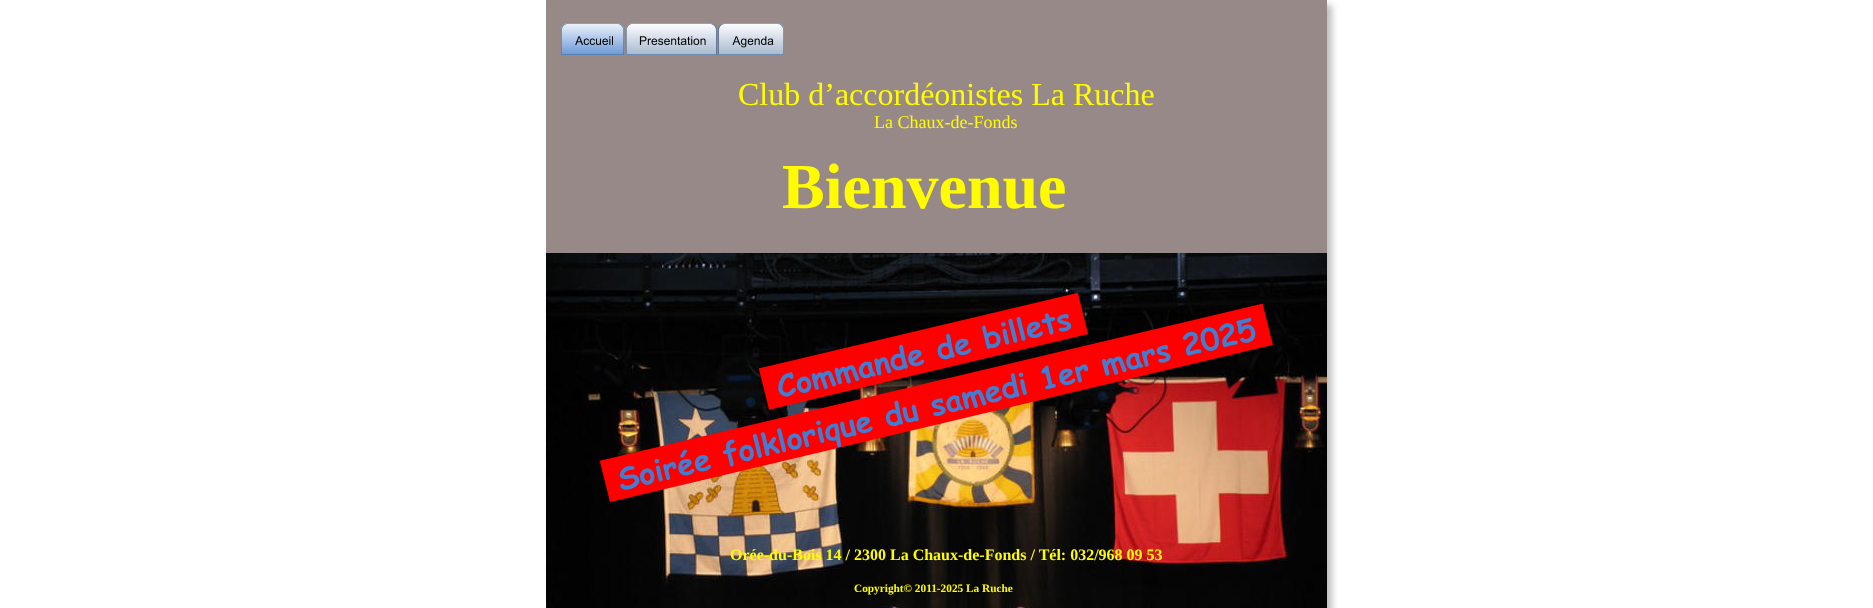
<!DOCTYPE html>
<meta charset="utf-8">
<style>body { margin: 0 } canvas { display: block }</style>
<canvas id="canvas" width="1873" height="608"></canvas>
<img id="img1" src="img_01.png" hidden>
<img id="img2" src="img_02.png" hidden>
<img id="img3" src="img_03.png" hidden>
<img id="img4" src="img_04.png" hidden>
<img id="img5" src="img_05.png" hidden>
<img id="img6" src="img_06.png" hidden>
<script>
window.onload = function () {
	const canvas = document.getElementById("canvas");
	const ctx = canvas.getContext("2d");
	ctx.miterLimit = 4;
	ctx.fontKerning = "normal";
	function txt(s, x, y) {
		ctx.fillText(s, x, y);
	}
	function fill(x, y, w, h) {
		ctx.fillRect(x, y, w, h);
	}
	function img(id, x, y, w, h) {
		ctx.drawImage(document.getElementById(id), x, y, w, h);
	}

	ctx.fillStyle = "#FFFFFF";
	fill(0, 0, 1873, 608);
	ctx.fillStyle = "rgba(0, 0, 0, 0.25)";
	ctx.filter = "blur(3px)";
	ctx.beginPath();
	ctx.rect(551, 5, 781, 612);
	ctx.fill();
	ctx.filter = "none";
	ctx.fillStyle = "#988989";
	fill(546, 0, 781, 253);
	img("img1", 561, 23, 63, 7);
	img("img2", 561, 23, 63, 32);
	img("img3", 626, 23, 91, 32);
	img("img4", 718, 23, 66, 32);
	img("img5", 546, 253, 781, 355);
	img("img6", 599, 292, 674, 210);
	ctx.font = "32px Liberation Serif";
	ctx.fillStyle = "#FFFC00";
	txt("Club d’accordéonistes La Ruche", 738, 105);
	ctx.font = "18px Liberation Serif";
	txt("La Chaux-de-Fonds", 874, 128);
	ctx.font = "bold 64px Liberation Serif";
	txt("Bienvenue", 782, 208);
	ctx.font = "bold 16px Liberation Serif";
	txt("Orée-du-Bois 14 / 2300 La Chaux-de-Fonds / Tél: 032/968 09 53", 730, 560);
	ctx.font = "bold 11.3px Liberation Serif";
	txt("Copyright© 2011-2025 La Ruche", 854, 592);
};
</script>
